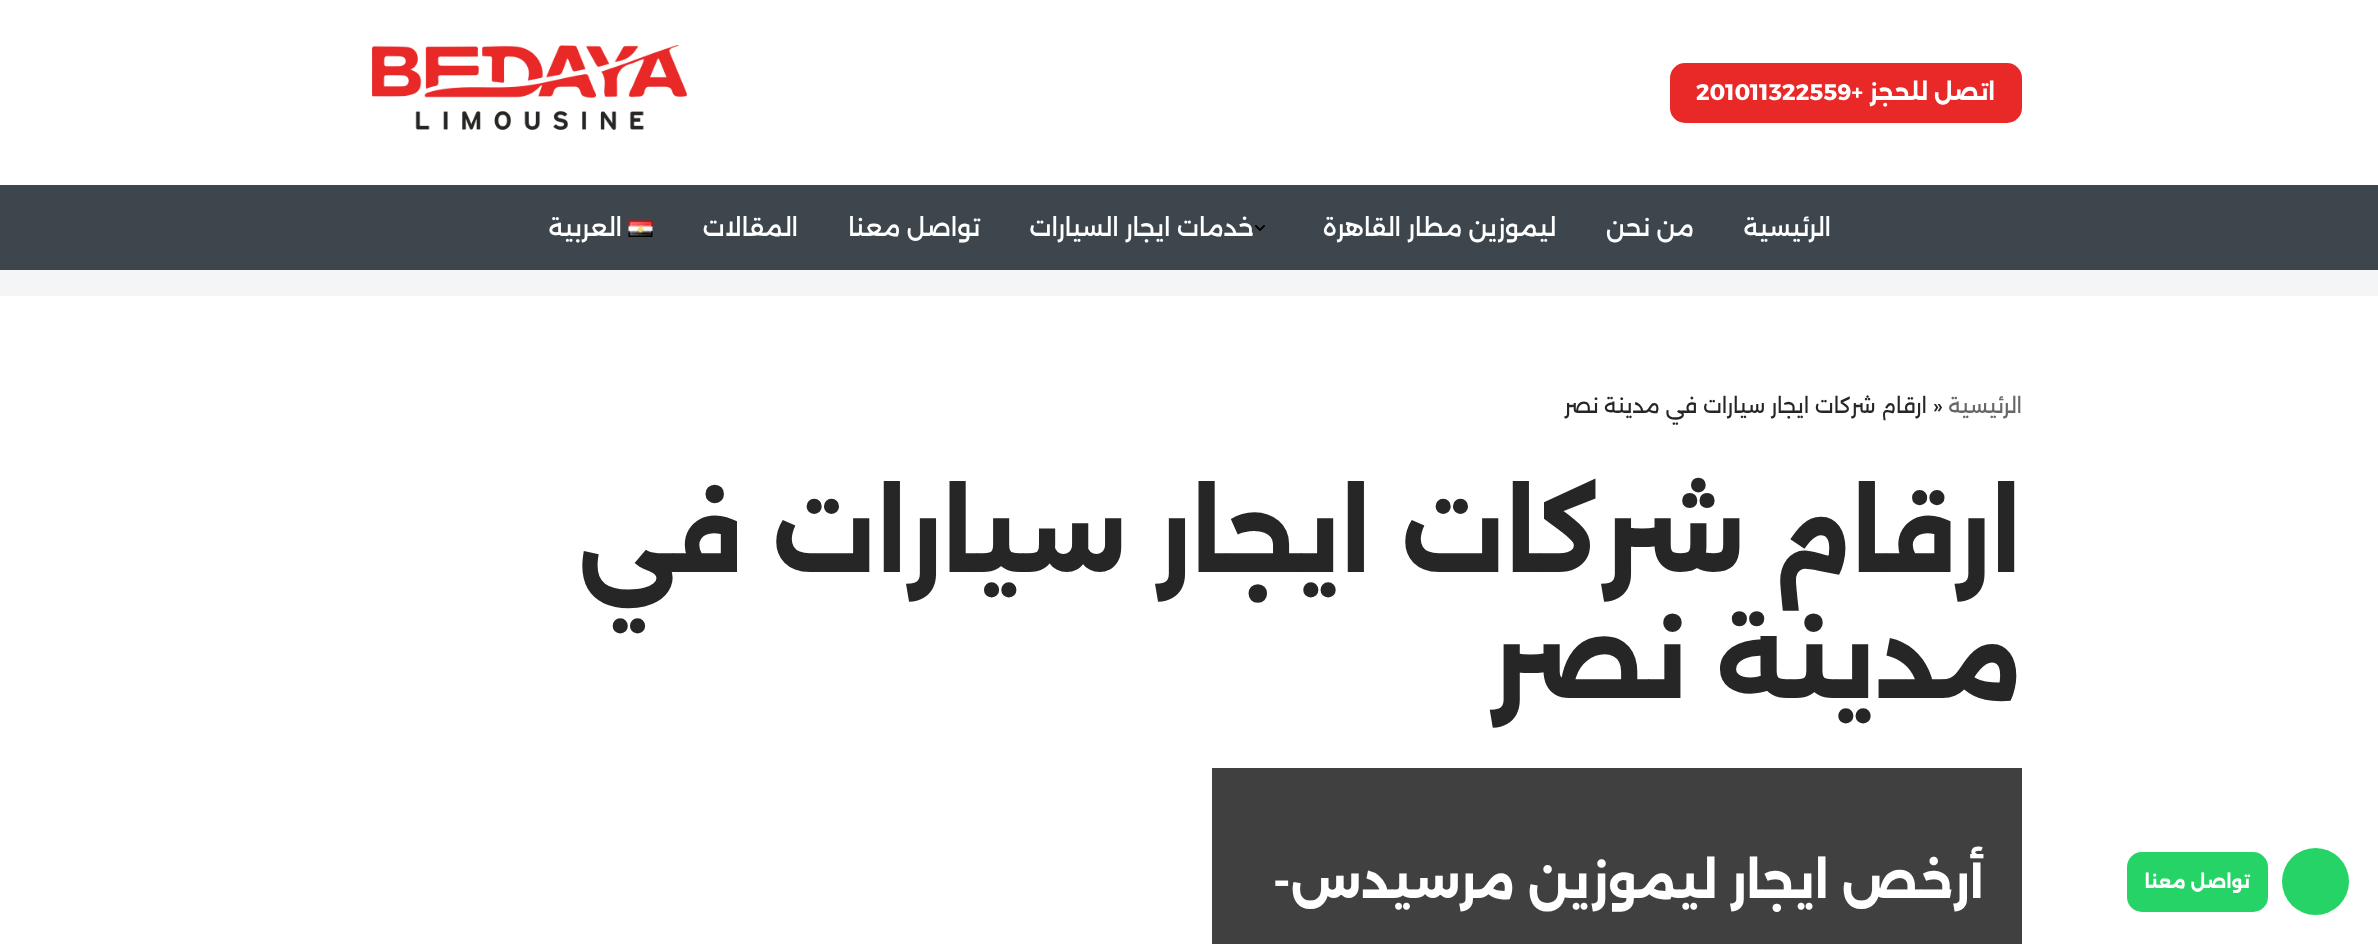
<!DOCTYPE html>
<meta charset="utf-8">
<style>body { margin: 0 } canvas { display: block }</style>
<canvas id="canvas" width="2378" height="944"></canvas>
<img id="img1" src="img_01.png" hidden>
<img id="img2" src="img_02.png" hidden>
<img id="img3" src="img_03.png" hidden>
<script>
window.onload = function () {
	const canvas = document.getElementById("canvas");
	const ctx = canvas.getContext("2d");
	ctx.miterLimit = 4;
	ctx.fontKerning = "normal";
	function txt(s, x, y) {
		ctx.fillText(s, x, y);
	}
	function fill(x, y, w, h) {
		ctx.fillRect(x, y, w, h);
	}
	function round(x, y, w, h, r) {
		ctx.beginPath();
		ctx.roundRect(x, y, w, h, r);
		ctx.fill();
	}
	function img(id, x, y, w, h) {
		ctx.drawImage(document.getElementById(id), x, y, w, h);
	}

	ctx.fillStyle = "#FFFFFF";
	fill(0, 0, 2378, 944);
	ctx.fillStyle = "#E92928";
	round(1670, 63, 352, 60, 15);
	img("img1", 372, 45, 315, 85);
	ctx.fillStyle = "#3D464D";
	fill(0, 185, 2378, 85);
	ctx.fillStyle = "#F4F5F7";
	fill(0, 270, 2378, 26);
	img("img2", 1255, 225, 10, 6);
	img("img3", 628, 220, 25, 17);
	ctx.fillStyle = "#25D366";
	ctx.beginPath();
	ctx.arc(2315.5, 881.5, 33.5, 0, Math.PI * 2);
	ctx.fill();
	round(2127, 852, 141, 60, 15);
	ctx.fillStyle = "#404040";
	fill(1212, 768, 810, 176);
	ctx.direction = "rtl";
	ctx.font = "bold 22.5px Alexandria";
	ctx.fillStyle = "#FFFFFF";
	txt("اتصل للحجز", 1995, 100);
	ctx.direction = "ltr";
	txt("201011322559+", 1696, 100);
	ctx.direction = "rtl";
	ctx.font = "500 24px Alexandria";
	txt("الرئيسية", 1831, 236);
	txt("من نحن", 1694, 236);
	txt("ليموزين مطار القاهرة", 1556, 236);
	txt("خدمات ايجار السيارات", 1254, 236);
	txt("تواصل معنا", 980, 236);
	txt("المقالات", 798, 236);
	txt("العربية", 622, 236);
	ctx.font = "bold 18px Alexandria";
	txt("تواصل معنا", 2250, 888);
	ctx.font = "21px Alexandria";
	ctx.fillStyle = "#676767";
	txt("الرئيسية", 2022, 413);
	ctx.direction = "ltr";
	ctx.fillStyle = "#272626";
	txt("»", 1933, 413);
	ctx.direction = "rtl";
	txt("ارقام شركات ايجار سيارات في مدينة نصر", 1927, 413);
	ctx.font = "bold 105px Alexandria";
	txt("ارقام شركات ايجار سيارات في", 2022, 572);
	txt("مدينة نصر", 2022, 698);
	ctx.font = "bold 48px Alexandria";
	ctx.fillStyle = "#FFFFFF";
	txt("أرخص ايجار ليموزين مرسيدس-", 1984, 898);
};
</script>
